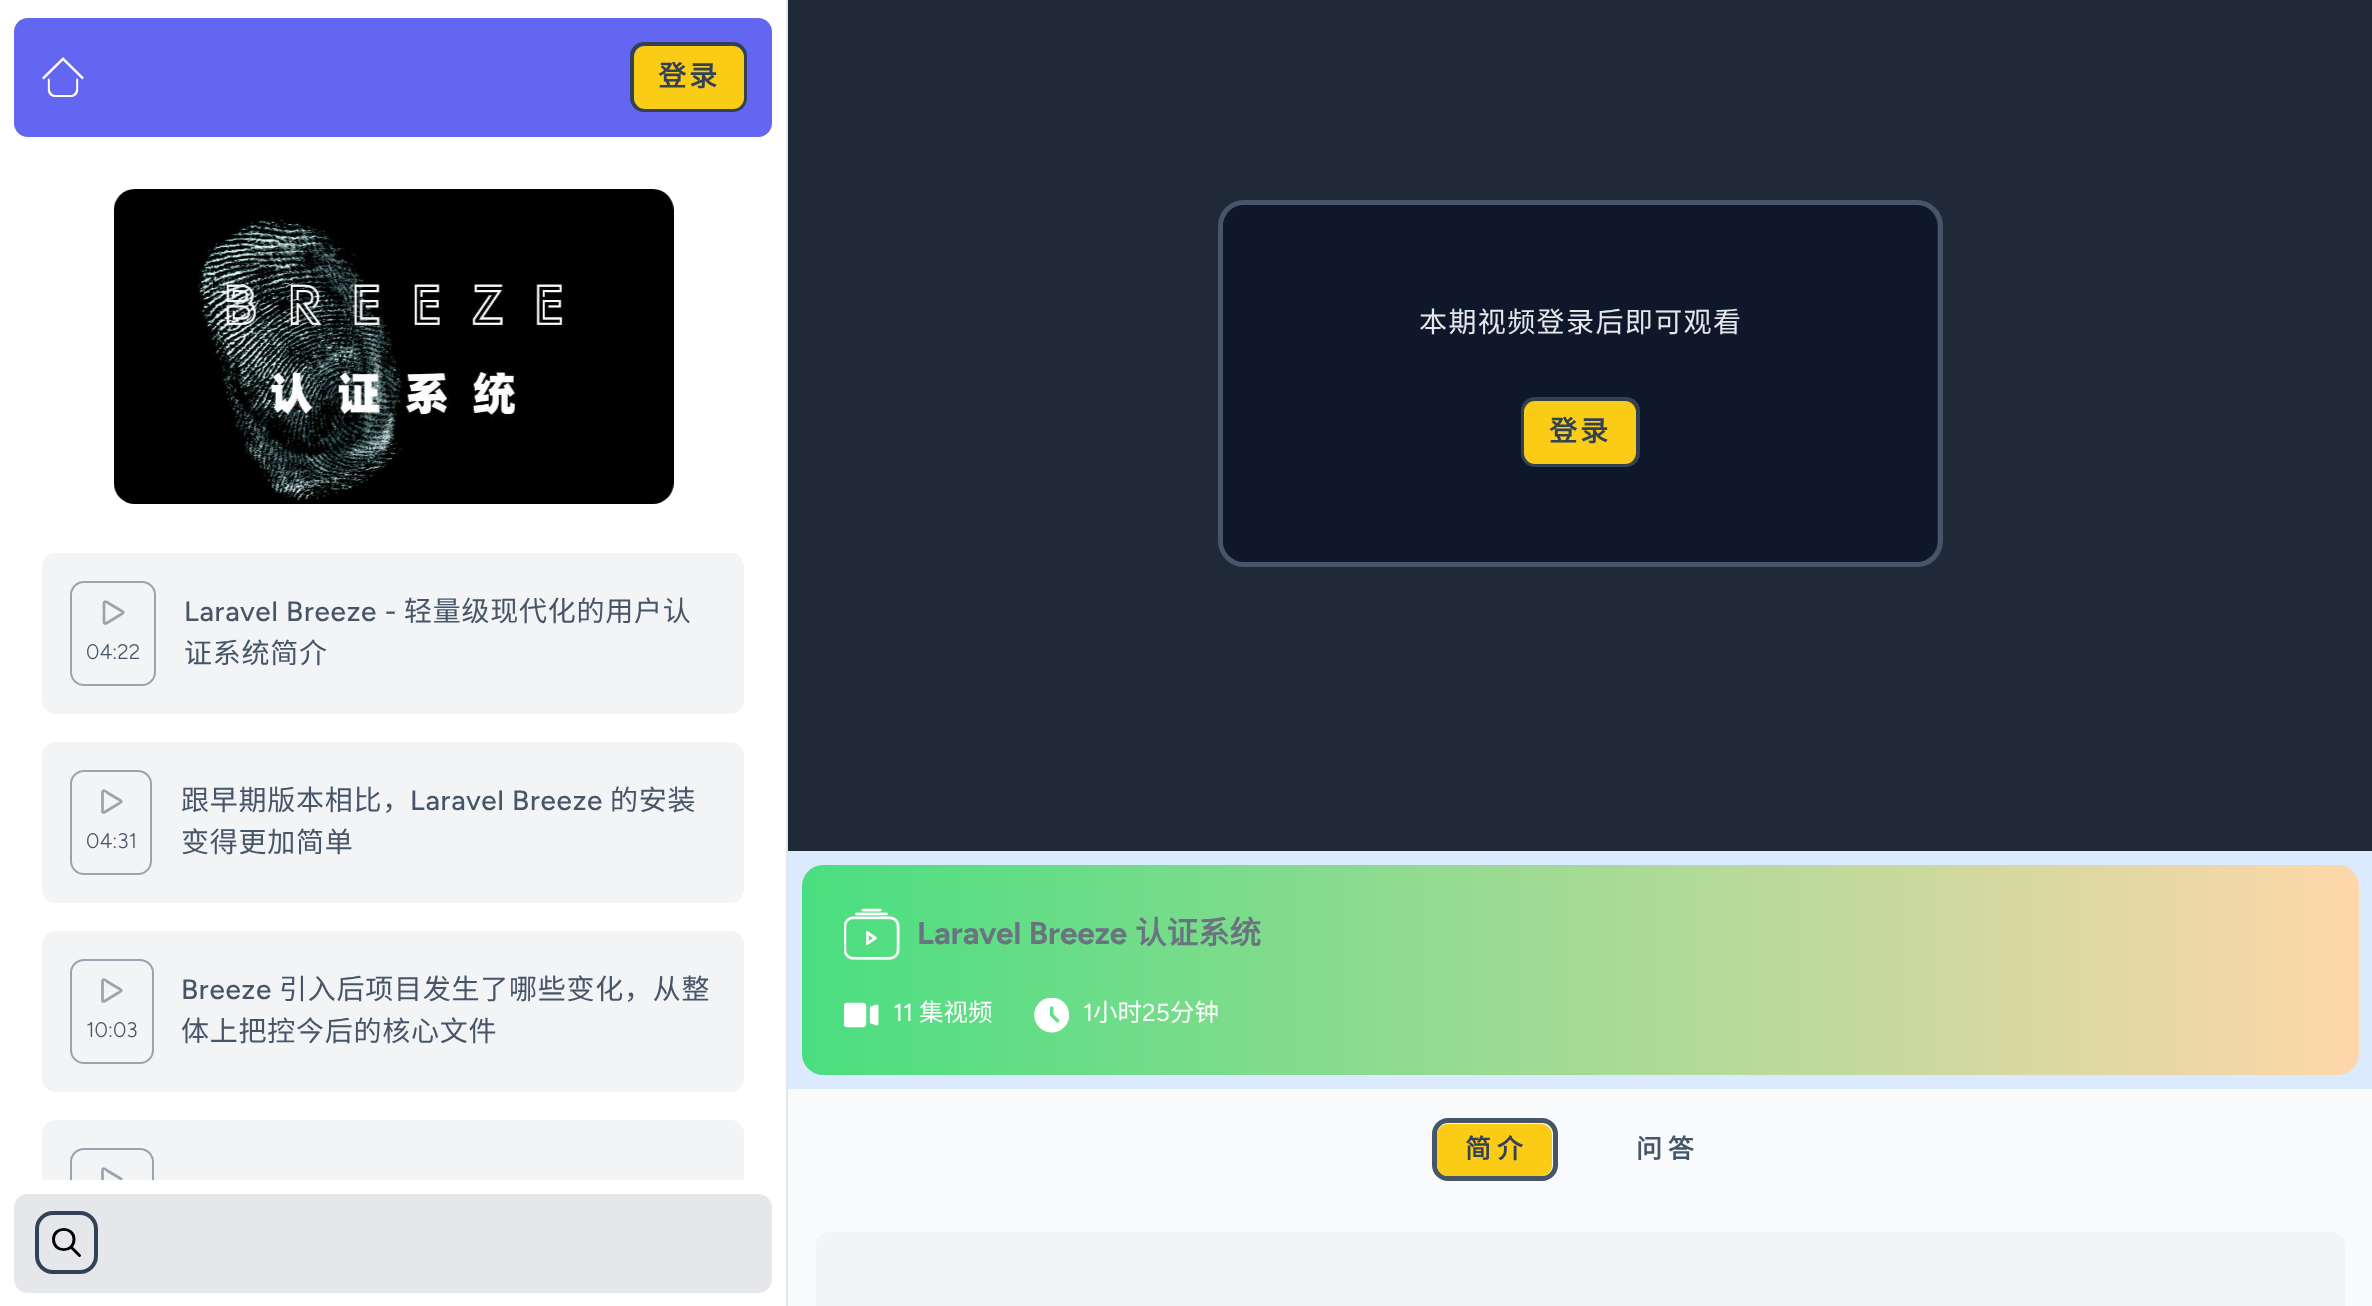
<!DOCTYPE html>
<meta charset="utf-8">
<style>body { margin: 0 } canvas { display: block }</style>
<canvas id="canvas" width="2372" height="1306"></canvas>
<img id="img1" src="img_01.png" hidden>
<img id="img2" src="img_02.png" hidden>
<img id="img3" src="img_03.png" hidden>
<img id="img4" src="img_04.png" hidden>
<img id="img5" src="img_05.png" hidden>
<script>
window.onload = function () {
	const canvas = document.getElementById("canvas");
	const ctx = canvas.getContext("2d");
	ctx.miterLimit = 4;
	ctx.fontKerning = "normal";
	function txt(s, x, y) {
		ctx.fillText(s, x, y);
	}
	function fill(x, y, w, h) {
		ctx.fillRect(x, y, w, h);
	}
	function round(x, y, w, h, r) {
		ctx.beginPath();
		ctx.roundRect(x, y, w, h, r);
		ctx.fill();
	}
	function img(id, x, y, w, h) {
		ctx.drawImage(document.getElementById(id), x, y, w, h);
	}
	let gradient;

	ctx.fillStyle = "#F9FAFB";
	fill(0, 0, 2372, 1306);
	ctx.fillStyle = "#FFFFFF";
	fill(0, 0, 786, 1306);
	ctx.fillStyle = "#E5E7EB";
	fill(786, 0, 2, 1306);
	ctx.fillStyle = "#6366F1";
	round(14, 18, 758, 119, 14);
	img("img1", 42, 57, 42, 40);
	ctx.beginPath();
	ctx.roundRect(632, 44, 113, 66, 12);
	ctx.strokeStyle = "#334155";
	ctx.lineWidth = 4;
	ctx.stroke();
	ctx.fillStyle = "#FACC15";
	round(634, 46, 110, 63, 11);
	img("img2", 114, 189, 560, 315);
	ctx.fillStyle = "#F3F4F6";
	round(42, 553, 702, 161, 14);
	ctx.beginPath();
	ctx.roundRect(71, 582, 84, 103, 13);
	ctx.strokeStyle = "#9CA3AF";
	ctx.lineWidth = 2;
	ctx.stroke();
	ctx.beginPath();
	ctx.moveTo(104, 603);
	ctx.lineTo(104, 622);
	ctx.bezierCurveTo(104, 623, 105, 623.5, 106, 623.5);
	ctx.lineTo(120, 615);
	ctx.bezierCurveTo(124.5, 612.5, 124.5, 612.5, 120, 610);
	ctx.lineTo(109, 603.5);
	ctx.bezierCurveTo(108.5, 603, 104.5, 600, 104, 603);
	ctx.closePath();
	ctx.lineWidth = 2.7;
	ctx.lineCap = "round";
	ctx.lineJoin = "round";
	ctx.stroke();
	round(42, 742, 702, 161, 14);
	ctx.beginPath();
	ctx.roundRect(71, 771, 80, 103, 13);
	ctx.lineWidth = 2;
	ctx.lineJoin = "miter";
	ctx.stroke();
	ctx.beginPath();
	ctx.moveTo(102.5, 792);
	ctx.lineTo(102.5, 811);
	ctx.bezierCurveTo(102.5, 812, 103.5, 812.5, 104, 812.5);
	ctx.lineTo(118, 804);
	ctx.bezierCurveTo(122.5, 801.5, 122.5, 801.5, 118, 799);
	ctx.lineTo(107, 792.5);
	ctx.bezierCurveTo(107, 792, 102.5, 789, 102.5, 792);
	ctx.closePath();
	ctx.lineWidth = 2.7;
	ctx.lineJoin = "round";
	ctx.stroke();
	round(42, 931, 702, 161, 14);
	ctx.beginPath();
	ctx.roundRect(71, 960, 82, 103, 13);
	ctx.lineWidth = 2;
	ctx.lineJoin = "miter";
	ctx.stroke();
	ctx.beginPath();
	ctx.moveTo(102.5, 981);
	ctx.lineTo(102.5, 1000);
	ctx.bezierCurveTo(102.5, 1001, 103.5, 1001.5, 104, 1001.5);
	ctx.lineTo(118, 993);
	ctx.bezierCurveTo(122.5, 990.5, 122.5, 990.5, 118, 988);
	ctx.lineTo(107, 981.5);
	ctx.bezierCurveTo(107, 981, 102.5, 978, 102.5, 981);
	ctx.closePath();
	ctx.lineWidth = 2.7;
	ctx.lineJoin = "round";
	ctx.stroke();
	ctx.beginPath();
	ctx.roundRect(42, 1120, 702, 60, [14, 14, 0, 0]);
	ctx.fill();
	ctx.fillStyle = "#E5E7EB";
	round(14, 1194, 758, 99, 14);
	ctx.save();
	ctx.beginPath();
	ctx.rect(0, 154, 786, 1026);
	ctx.clip();
	ctx.beginPath();
	ctx.roundRect(71, 1149, 82, 103, 13);
	ctx.lineWidth = 2;
	ctx.lineJoin = "miter";
	ctx.stroke();
	ctx.restore();
	ctx.save();
	ctx.beginPath();
	ctx.rect(100, 1167, 24, 13);
	ctx.clip();
	ctx.beginPath();
	ctx.moveTo(102.5, 1170);
	ctx.lineTo(102.5, 1189);
	ctx.bezierCurveTo(102.5, 1190, 103.5, 1190.5, 104, 1190.5);
	ctx.lineTo(118, 1182);
	ctx.bezierCurveTo(122.5, 1179.5, 122.5, 1179.5, 118, 1177);
	ctx.lineTo(107, 1170.5);
	ctx.bezierCurveTo(107, 1170, 102.5, 1167, 102.5, 1170);
	ctx.closePath();
	ctx.stroke();
	ctx.restore();
	ctx.beginPath();
	ctx.roundRect(37, 1213, 59, 59, 16);
	ctx.strokeStyle = "#334155";
	ctx.lineWidth = 4;
	ctx.lineJoin = "miter";
	ctx.stroke();
	ctx.beginPath();
	ctx.moveTo(79.5, 1255.5);
	ctx.lineTo(71, 1247);
	ctx.moveTo(74, 1239.5);
	ctx.bezierCurveTo(74, 1253, 53.5, 1253, 53.5, 1239.5);
	ctx.bezierCurveTo(53.5, 1226, 74, 1226, 74, 1239.5);
	ctx.closePath();
	ctx.strokeStyle = "#000000";
	ctx.lineWidth = 2.9;
	ctx.lineJoin = "round";
	ctx.stroke();
	ctx.fillStyle = "#1F2937";
	fill(788, 0, 1584, 851);
	ctx.beginPath();
	ctx.roundRect(1220.5, 202.5, 720, 362, 23.5);
	ctx.strokeStyle = "#475569";
	ctx.lineWidth = 5;
	ctx.lineJoin = "miter";
	ctx.stroke();
	ctx.fillStyle = "#0F172A";
	round(1223, 205, 714, 357, 21);
	ctx.beginPath();
	ctx.roundRect(1523, 399, 115, 66, 12);
	ctx.strokeStyle = "#334155";
	ctx.lineWidth = 4;
	ctx.stroke();
	ctx.fillStyle = "#FACC15";
	round(1524, 401, 112, 63, 11);
	ctx.fillStyle = "#DBEAFE";
	fill(788, 851, 1584, 238);
	gradient = ctx.createLinearGradient(802, 970, 2359, 970);
	gradient.addColorStop(0, "#4ADE80");
	gradient.addColorStop(1, "#FED7AA");
	ctx.fillStyle = gradient;
	round(802, 865, 1557, 210, 21);
	img("img3", 844, 908, 56, 52);
	img("img4", 844, 1002, 35, 26);
	img("img5", 1034, 998, 35, 35);
	ctx.beginPath();
	ctx.roundRect(1434.5, 1120.5, 121, 58, 13.5);
	ctx.strokeStyle = "#475569";
	ctx.lineWidth = 5;
	ctx.stroke();
	ctx.fillStyle = "#FACC15";
	round(1437, 1124, 115, 52, 11);
	ctx.fillStyle = "#F3F4F6";
	ctx.beginPath();
	ctx.moveTo(830, 1232);
	ctx.lineTo(2331, 1232);
	ctx.bezierCurveTo(2338.5, 1232, 2345, 1238.5, 2345, 1246);
	ctx.lineTo(2345, 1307);
	ctx.lineTo(816, 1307);
	ctx.lineTo(816, 1246);
	ctx.bezierCurveTo(816, 1238.5, 822.5, 1232, 830, 1232);
	ctx.closePath();
	ctx.fill();
	ctx.letterSpacing = "3px";
	ctx.font = "bold 28px Noto Sans CJK SC";
	ctx.fillStyle = "#334155";
	txt("登录", 658, 86);
	ctx.letterSpacing = "0px";
	ctx.font = "300 21px Figtree";
	ctx.fillStyle = "#475569";
	txt("04:22", 86, 659);
	ctx.letterSpacing = "0.75px";
	ctx.font = "500 28px Figtree";
	txt("Laravel Breeze -", 184, 621);
	ctx.font = "28px Noto Sans CJK SC";
	txt("轻量级现代化的用户认", 404, 621);
	txt("证系统简介", 184, 663);
	ctx.letterSpacing = "0px";
	ctx.font = "300 21px Figtree";
	txt("04:31", 86, 848);
	ctx.letterSpacing = "0.75px";
	ctx.font = "28px Noto Sans CJK SC";
	txt("跟早期版本相比，", 181, 810);
	ctx.font = "500 28px Figtree";
	txt("Laravel Breeze", 410, 810);
	ctx.font = "28px Noto Sans CJK SC";
	txt("的安装", 610, 810);
	txt("变得更加简单", 181, 852);
	ctx.letterSpacing = "0px";
	ctx.font = "300 21px Figtree";
	txt("10:03", 86, 1037);
	ctx.letterSpacing = "0.75px";
	ctx.font = "500 28px Figtree";
	txt("Breeze", 181, 999);
	ctx.font = "28px Noto Sans CJK SC";
	txt("引入后项目发生了哪些变化，从整", 279, 999);
	txt("体上把控今后的核心文件", 181, 1041);
	ctx.letterSpacing = "1.4px";
	ctx.fillStyle = "#E5E7EB";
	txt("本期视频登录后即可观看", 1419, 332);
	ctx.letterSpacing = "3px";
	ctx.font = "bold 28px Noto Sans CJK SC";
	ctx.fillStyle = "#334155";
	txt("登录", 1549, 441);
	ctx.letterSpacing = "0px";
	ctx.font = "bold 31.5px Figtree";
	ctx.fillStyle = "#6B7280";
	txt("Laravel Breeze", 917, 944);
	ctx.font = "bold 31.5px Noto Sans CJK SC";
	txt("认证系统", 1135, 944);
	ctx.font = "24.5px Figtree";
	ctx.fillStyle = "#FFFFFF";
	txt("11", 893, 1021);
	ctx.font = "24.5px Noto Sans CJK SC";
	txt("集视频", 919, 1021);
	ctx.font = "24.5px Figtree";
	txt("1", 1083, 1021);
	ctx.font = "24.5px Noto Sans CJK SC";
	txt("小时", 1093, 1021);
	ctx.font = "24.5px Figtree";
	txt("25", 1142, 1021);
	ctx.font = "24.5px Noto Sans CJK SC";
	txt("分钟", 1170, 1021);
	ctx.font = "bold 26px Noto Sans CJK SC";
	ctx.fillStyle = "#334155";
	txt("简 介", 1465, 1158);
	ctx.fillStyle = "#475569";
	txt("问 答", 1636, 1158);
};
</script>
